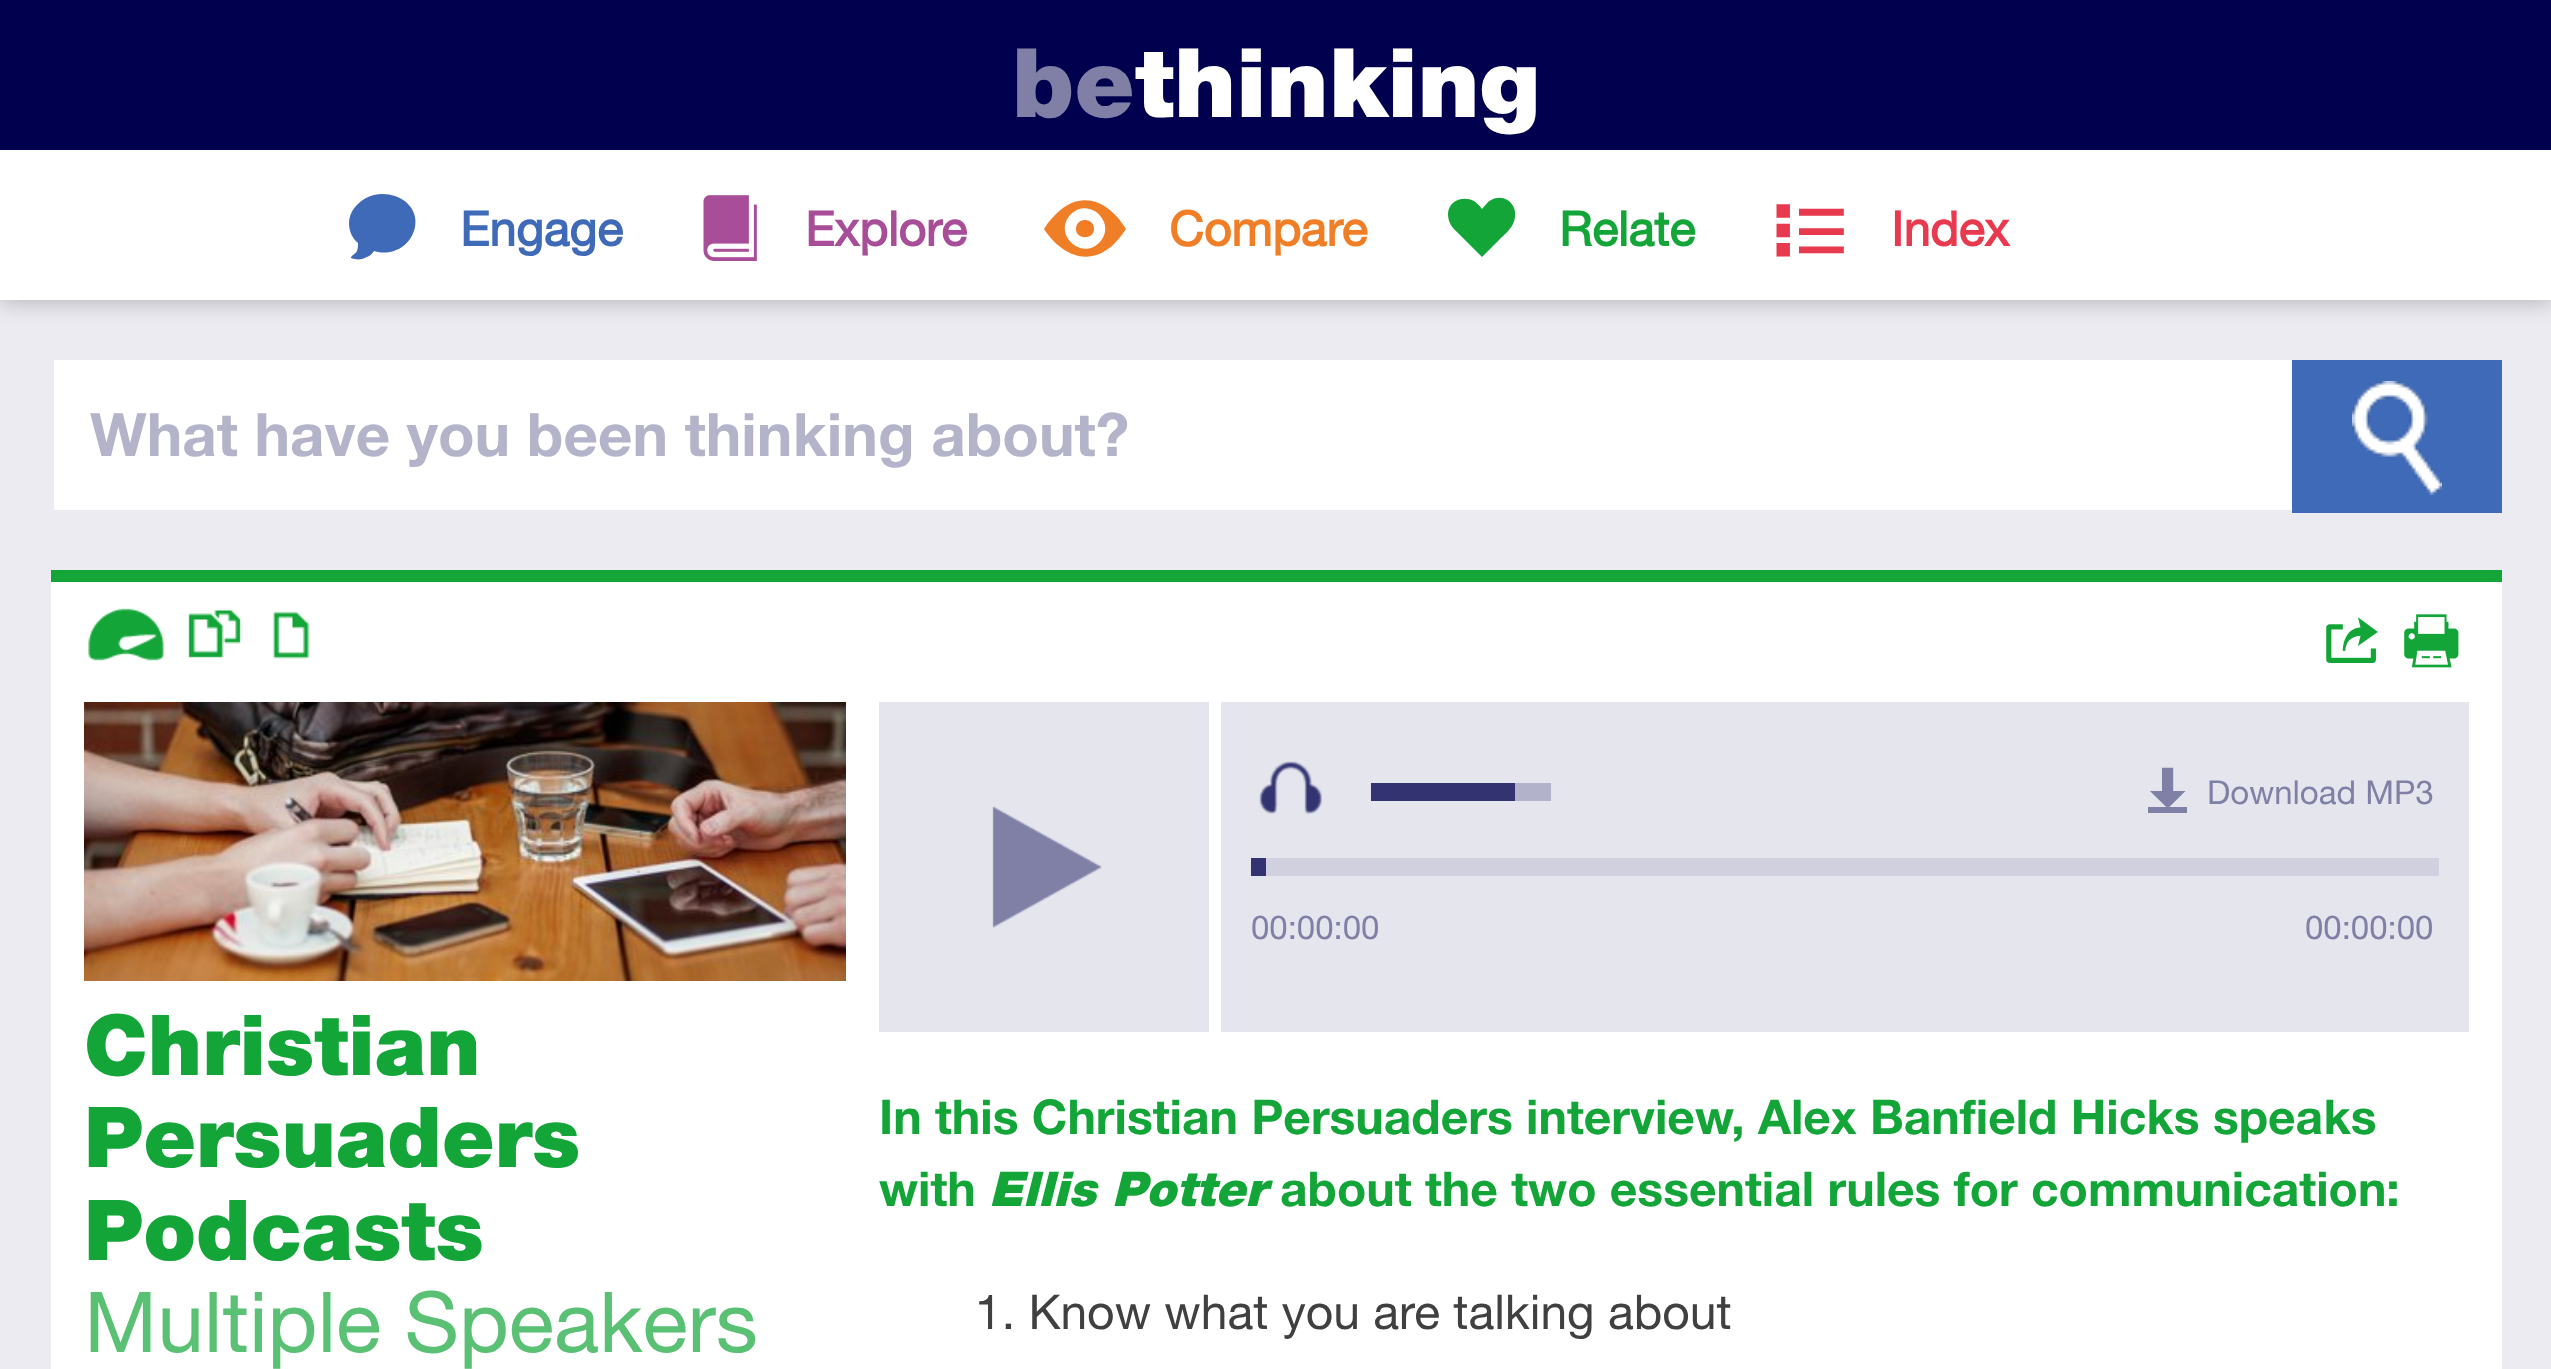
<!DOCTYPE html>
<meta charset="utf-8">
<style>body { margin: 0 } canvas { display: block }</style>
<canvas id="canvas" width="2551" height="1369"></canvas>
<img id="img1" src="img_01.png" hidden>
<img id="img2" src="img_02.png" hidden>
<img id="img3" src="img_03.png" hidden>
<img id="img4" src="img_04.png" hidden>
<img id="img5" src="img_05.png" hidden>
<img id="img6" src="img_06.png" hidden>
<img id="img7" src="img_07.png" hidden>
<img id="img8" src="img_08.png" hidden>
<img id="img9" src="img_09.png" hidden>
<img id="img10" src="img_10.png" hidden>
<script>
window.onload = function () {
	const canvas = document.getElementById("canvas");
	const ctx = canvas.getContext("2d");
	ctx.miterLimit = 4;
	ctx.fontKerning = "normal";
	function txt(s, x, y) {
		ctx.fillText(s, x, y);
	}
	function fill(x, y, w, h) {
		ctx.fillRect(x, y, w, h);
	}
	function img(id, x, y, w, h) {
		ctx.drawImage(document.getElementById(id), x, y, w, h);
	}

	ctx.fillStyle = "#EBEBF1";
	fill(0, 0, 2551, 1369);
	ctx.fillStyle = "rgba(0, 0, 0, 0.28)";
	ctx.filter = "blur(12px)";
	ctx.beginPath();
	ctx.rect(0, 0, 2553, 300);
	ctx.fill();
	ctx.filter = "none";
	ctx.fillStyle = "#FFFFFF";
	fill(0, 150, 2551, 150);
	ctx.fillStyle = "#00004E";
	fill(0, 0, 2551, 150);
	ctx.fillStyle = "#3F6AB8";
	ctx.beginPath();
	ctx.moveTo(349, 223);
	ctx.bezierCurveTo(349, 212, 357, 203, 366, 198);
	ctx.bezierCurveTo(375, 193, 386, 193, 395, 196);
	ctx.bezierCurveTo(434, 210, 412, 262, 374, 251);
	ctx.bezierCurveTo(372, 254, 370, 256, 367, 257);
	ctx.bezierCurveTo(363, 259, 359, 260, 355, 259);
	ctx.bezierCurveTo(346, 258, 355, 255, 357, 251);
	ctx.bezierCurveTo(358, 248, 358, 245, 358, 243);
	ctx.bezierCurveTo(352, 238, 349, 231, 349, 223);
	ctx.closePath();
	ctx.fill();
	img("img1", 703, 195, 54, 66);
	ctx.fillStyle = "#F07E26";
	ctx.beginPath();
	ctx.moveTo(1044, 229);
	ctx.bezierCurveTo(1048, 222, 1053, 217, 1058, 212);
	ctx.bezierCurveTo(1083, 189, 1110, 202, 1126, 229);
	ctx.bezierCurveTo(1122, 235, 1117, 241, 1112, 246);
	ctx.bezierCurveTo(1086, 268, 1060, 253, 1044, 229);
	ctx.closePath();
	ctx.moveTo(1071, 214);
	ctx.bezierCurveTo(1052, 233, 1081, 261, 1099, 243);
	ctx.bezierCurveTo(1118, 224, 1090, 196, 1071, 214);
	ctx.closePath();
	ctx.moveTo(1076, 229);
	ctx.bezierCurveTo(1076, 240, 1094, 240, 1094, 229);
	ctx.bezierCurveTo(1094, 217, 1076, 217, 1076, 229);
	ctx.closePath();
	ctx.fill();
	ctx.fillStyle = "#13A538";
	ctx.beginPath();
	ctx.moveTo(1448, 214);
	ctx.bezierCurveTo(1448, 201, 1463, 195, 1474, 201);
	ctx.bezierCurveTo(1477, 203, 1480, 206, 1482, 209);
	ctx.bezierCurveTo(1485, 206, 1487, 202, 1491, 200);
	ctx.bezierCurveTo(1506, 192, 1521, 207, 1513, 224);
	ctx.bezierCurveTo(1510, 230, 1504, 235, 1499, 240);
	ctx.lineTo(1482, 257);
	ctx.lineTo(1457, 232);
	ctx.bezierCurveTo(1451, 227, 1448, 221, 1448, 214);
	ctx.closePath();
	ctx.fill();
	ctx.fillStyle = "#FFFFFF";
	fill(54, 360, 2238, 150);
	ctx.fillStyle = "#3F6AB8";
	fill(2292, 360, 210, 153);
	img("img2", 2352, 381, 90, 114);
	ctx.fillStyle = "#FFFFFF";
	fill(51, 582, 2451, 787);
	ctx.fillStyle = "#13A538";
	fill(51, 570, 2451, 12);
	fill(88, 608, 76, 53);
	img("img3", 87, 606, 78, 57);
	fill(188, 610, 53, 48);
	img("img4", 180, 606, 66, 57);
	fill(272, 611, 38, 48);
	img("img5", 258, 606, 66, 57);
	img("img6", 2326, 617, 52, 46);
	img("img7", 2404, 614, 55, 54);
	img("img8", 84, 702, 762, 279);
	ctx.fillStyle = "#E5E5ED";
	fill(1221, 702, 1248, 330);
	ctx.fillStyle = "#8080A6";
	fill(2148, 807, 39, 6);
	ctx.fillStyle = "#E5E5ED";
	fill(879, 702, 330, 330);
	img("img9", 992, 806, 110, 122);
	img("img10", 1259, 761, 63, 54);
	ctx.fillStyle = "#333371";
	fill(1371, 783, 144, 18);
	ctx.fillStyle = "#B2B2CA";
	fill(1515, 783, 36, 18);
	ctx.fillStyle = "#D0D0DF";
	fill(1266, 858, 1173, 18);
	ctx.fillStyle = "#333371";
	fill(1251, 858, 15, 18);
	ctx.font = "900 96px 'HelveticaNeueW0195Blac'";
	ctx.fillStyle = "#8080A6";
	txt("be", 1012, 117);
	ctx.fillStyle = "#FFFFFF";
	txt("thinking", 1135, 117);
	ctx.font = "bold 48px 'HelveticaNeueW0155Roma'";
	ctx.fillStyle = "#3F6AB8";
	txt("Engage", 460, 246);
	ctx.fillStyle = "#A84D97";
	txt("Explore", 805, 246);
	ctx.fillStyle = "#F07E26";
	txt("Compare", 1169, 246);
	ctx.fillStyle = "#13A538";
	txt("Relate", 1559, 246);
	ctx.font = "105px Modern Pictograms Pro";
	ctx.fillStyle = "#E83A4E";
	txt("4", 1766, 261);
	ctx.font = "bold 48px 'HelveticaNeueW0155Roma'";
	txt("Index", 1891, 246);
	ctx.font = "bold 60px 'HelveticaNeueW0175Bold'";
	ctx.fillStyle = "#B3B3CA";
	txt("What have you been thinking about?", 90, 456);
	ctx.font = "900 84px 'HelveticaNeueW0195Blac'";
	ctx.fillStyle = "#13A538";
	txt("Christian", 84, 1075);
	txt("Persuaders", 84, 1167);
	txt("Podcasts", 84, 1260);
	ctx.font = "84px 'HelveticaNeueW0155Roma'";
	ctx.fillStyle = "#5AC074";
	txt("Multiple Speakers", 84, 1352);
	ctx.font = "72px Modern Pictograms Pro";
	ctx.fillStyle = "#8080A6";
	txt("[", 2147, 810);
	ctx.font = "33px 'HelveticaNeueW0155Roma'";
	txt("Download MP3", 2207, 804);
	txt("00:00:00", 1251, 939);
	txt("00:00:00", 2305, 939);
	ctx.font = "bold 48px 'HelveticaNeueW0175Bold'";
	ctx.fillStyle = "#13A538";
	txt("In this Christian Persuaders interview, Alex Banfield Hicks speaks", 879, 1134);
	txt("with", 879, 1206);
	ctx.font = "italic 900 48px 'HelveticaNeueW0195Blac'";
	txt("Ellis Potter", 989, 1206);
	ctx.font = "bold 48px 'HelveticaNeueW0175Bold'";
	txt("about the two essential rules for communication:", 1280, 1206);
	ctx.font = "48px 'HelveticaNeueW0155Roma'";
	ctx.fillStyle = "#404040";
	txt("1. Know what you are talking about", 975, 1329);
};
</script>
